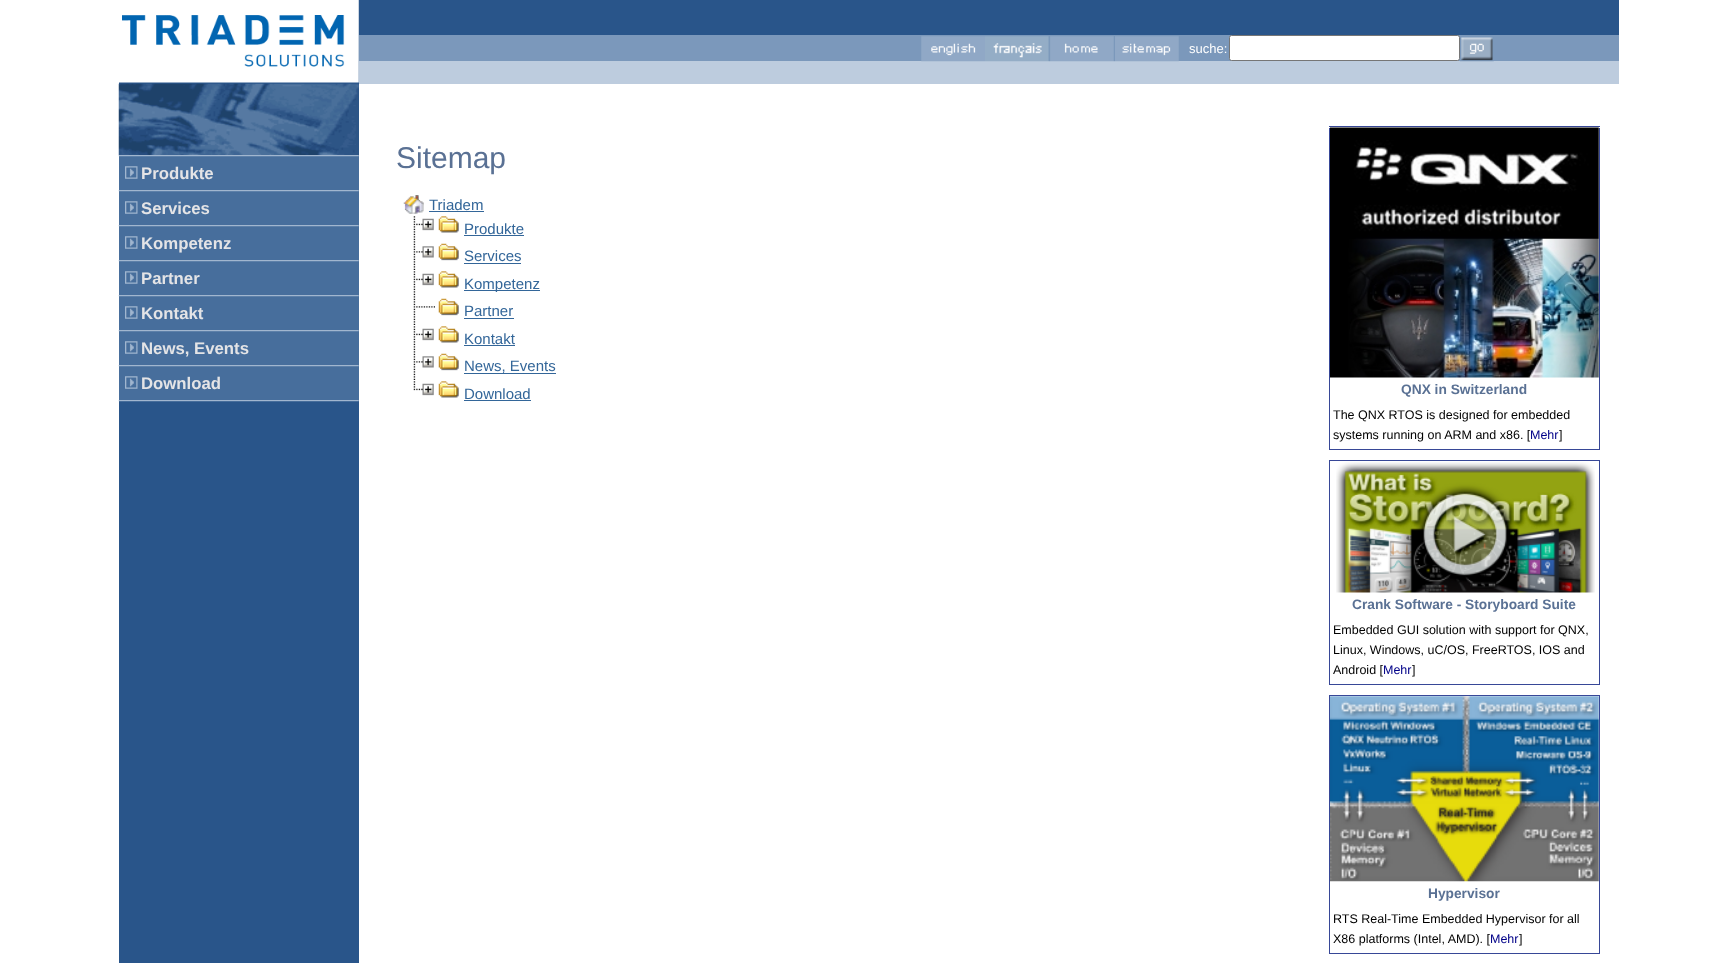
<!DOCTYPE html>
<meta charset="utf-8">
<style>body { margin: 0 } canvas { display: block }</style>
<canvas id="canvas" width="1736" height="963"></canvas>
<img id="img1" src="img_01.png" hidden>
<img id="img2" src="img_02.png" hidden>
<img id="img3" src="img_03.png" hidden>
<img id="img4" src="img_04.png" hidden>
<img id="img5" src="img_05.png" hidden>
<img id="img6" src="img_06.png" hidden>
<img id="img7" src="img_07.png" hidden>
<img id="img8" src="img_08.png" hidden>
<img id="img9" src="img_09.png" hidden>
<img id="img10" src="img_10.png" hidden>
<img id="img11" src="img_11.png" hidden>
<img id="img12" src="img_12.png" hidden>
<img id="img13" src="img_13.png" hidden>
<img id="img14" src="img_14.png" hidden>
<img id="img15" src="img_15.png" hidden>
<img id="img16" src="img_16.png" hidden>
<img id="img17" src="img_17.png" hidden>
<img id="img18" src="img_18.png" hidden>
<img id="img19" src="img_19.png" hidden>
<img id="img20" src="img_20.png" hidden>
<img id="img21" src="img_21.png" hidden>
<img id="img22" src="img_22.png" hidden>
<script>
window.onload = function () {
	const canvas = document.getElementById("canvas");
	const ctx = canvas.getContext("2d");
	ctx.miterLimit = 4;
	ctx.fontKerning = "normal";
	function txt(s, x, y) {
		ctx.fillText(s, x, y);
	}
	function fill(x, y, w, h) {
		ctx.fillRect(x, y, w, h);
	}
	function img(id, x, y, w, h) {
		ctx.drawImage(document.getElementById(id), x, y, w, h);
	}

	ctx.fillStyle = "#FFFFFF";
	fill(0, 0, 1736, 963);
	ctx.fillStyle = "#29558A";
	fill(119, 0, 240, 963);
	img("img1", 119, 0, 240, 83);
	fill(359, 0, 1260, 35);
	ctx.fillStyle = "#7B98BB";
	fill(359, 35, 1260, 26);
	ctx.fillStyle = "#BDCCDE";
	fill(359, 61, 1260, 23);
	img("img2", 921, 36, 64, 26);
	img("img3", 985, 36, 64, 26);
	img("img4", 1048, 36, 67, 26);
	img("img5", 1115, 36, 64, 26);
	ctx.fillStyle = "#FFFFFF";
	ctx.beginPath();
	ctx.roundRect(1229.5, 35.5, 230, 25, 2);
	ctx.fill();
	ctx.strokeStyle = "#767676";
	ctx.stroke();
	img("img6", 1460, 37, 34, 25);
	img("img7", 118, 83, 241, 72);
	ctx.fillStyle = "#476E9C";
	fill(119, 156, 240, 34);
	img("img8", 118, 155, 241, 2);
	img("img9", 125, 166, 13, 13);
	fill(119, 191, 240, 34);
	img("img8", 118, 190, 241, 2);
	img("img9", 125, 201, 13, 13);
	fill(119, 226, 240, 34);
	img("img8", 118, 225, 241, 2);
	img("img9", 125, 236, 13, 13);
	fill(119, 261, 240, 34);
	img("img8", 118, 260, 241, 2);
	img("img9", 125, 271, 13, 13);
	fill(119, 296, 240, 34);
	img("img8", 118, 295, 241, 2);
	img("img9", 125, 306, 13, 13);
	fill(119, 331, 240, 34);
	img("img8", 118, 330, 241, 2);
	img("img9", 125, 341, 13, 13);
	fill(119, 366, 240, 34);
	img("img8", 118, 365, 241, 2);
	img("img9", 125, 376, 13, 13);
	img("img10", 118, 400, 241, 2);
	img("img11", 403, 195, 21, 19);
	ctx.fillStyle = "#336699";
	fill(429, 211, 55, 1);
	img("img12", 413, 216, 3, 27);
	img("img13", 416, 218, 18, 13);
	img("img14", 438, 216, 21, 17);
	fill(464, 235, 60, 1);
	img("img15", 413, 243, 3, 27);
	img("img16", 416, 246, 18, 12);
	img("img17", 438, 243, 21, 18);
	fill(464, 263, 57, 1);
	img("img12", 413, 271, 3, 27);
	img("img13", 416, 273, 18, 13);
	img("img14", 438, 271, 21, 17);
	fill(464, 290, 76, 1);
	img("img15", 413, 298, 3, 27);
	img("img18", 416, 306, 19, 2);
	img("img17", 438, 298, 21, 18);
	fill(464, 318, 50, 1);
	img("img12", 413, 326, 3, 27);
	img("img13", 416, 328, 18, 13);
	img("img14", 438, 326, 21, 17);
	fill(464, 345, 51, 1);
	img("img15", 413, 353, 3, 27);
	img("img16", 416, 356, 18, 12);
	img("img17", 438, 353, 21, 18);
	fill(464, 373, 92, 1);
	img("img19", 413, 381, 21, 15);
	img("img14", 438, 381, 21, 17);
	fill(464, 400, 67, 1);
	ctx.fillStyle = "#374797";
	fill(1329, 126, 271, 1);
	fill(1329, 128, 1, 321);
	img("img20", 1330, 127, 269, 251);
	fill(1599, 128, 1, 321);
	fill(1329, 449, 271, 1);
	fill(1329, 460, 271, 1);
	fill(1329, 461, 1, 223);
	img("img21", 1336, 462, 259, 131);
	fill(1599, 461, 1, 223);
	fill(1329, 684, 271, 1);
	fill(1329, 695, 271, 1);
	fill(1329, 696, 1, 257);
	img("img22", 1330, 696, 269, 186);
	fill(1599, 696, 1, 257);
	fill(1329, 953, 271, 1);
	ctx.font = "13px Liberation Sans";
	ctx.fillStyle = "#FFFFFF";
	txt("suche:", 1189, 53);
	ctx.font = "bold 16.75px Liberation Sans";
	ctx.fillStyle = "#E4E4E6";
	txt("Produkte", 141, 179);
	txt("Services", 141, 214);
	txt("Kompetenz", 141, 249);
	txt("Partner", 141, 284);
	txt("Kontakt", 141, 319);
	txt("News, Events", 141, 354);
	txt("Download", 141, 389);
	ctx.font = "30px Liberation Sans";
	ctx.fillStyle = "#5A7194";
	txt("Sitemap", 396, 168);
	ctx.font = "15px Liberation Sans";
	ctx.fillStyle = "#336699";
	txt("Triadem", 429, 210);
	txt("Produkte", 464, 234);
	txt("Services", 464, 261);
	txt("Kompetenz", 464, 289);
	txt("Partner", 464, 316);
	txt("Kontakt", 464, 344);
	txt("News, Events", 464, 371);
	txt("Download", 464, 399);
	ctx.font = "bold 13.75px Liberation Sans";
	ctx.fillStyle = "#5A7194";
	txt("QNX in Switzerland", 1401, 394);
	ctx.font = "12.5px Liberation Sans";
	ctx.fillStyle = "#000000";
	txt("The QNX RTOS is designed for embedded", 1333, 419);
	txt("systems running on ARM and x86. [", 1333, 439);
	ctx.fillStyle = "#000088";
	txt("Mehr", 1530, 439);
	ctx.fillStyle = "#000000";
	txt("]", 1559, 439);
	ctx.font = "bold 13.75px Liberation Sans";
	ctx.fillStyle = "#5A7194";
	txt("Crank Software - Storyboard Suite", 1352, 609);
	ctx.font = "12.5px Liberation Sans";
	ctx.fillStyle = "#000000";
	txt("Embedded GUI solution with support for QNX,", 1333, 634);
	txt("Linux, Windows, uC/OS, FreeRTOS, IOS and", 1333, 654);
	txt("Android [", 1333, 674);
	ctx.fillStyle = "#000088";
	txt("Mehr", 1383, 674);
	ctx.fillStyle = "#000000";
	txt("]", 1412, 674);
	ctx.font = "bold 13.75px Liberation Sans";
	ctx.fillStyle = "#5A7194";
	txt("Hypervisor", 1428, 898);
	ctx.font = "12.5px Liberation Sans";
	ctx.fillStyle = "#000000";
	txt("RTS Real-Time Embedded Hypervisor for all", 1333, 923);
	txt("X86 platforms (Intel, AMD). [", 1333, 943);
	ctx.fillStyle = "#000088";
	txt("Mehr", 1490, 943);
	ctx.fillStyle = "#000000";
	txt("]", 1519, 943);
};
</script>
